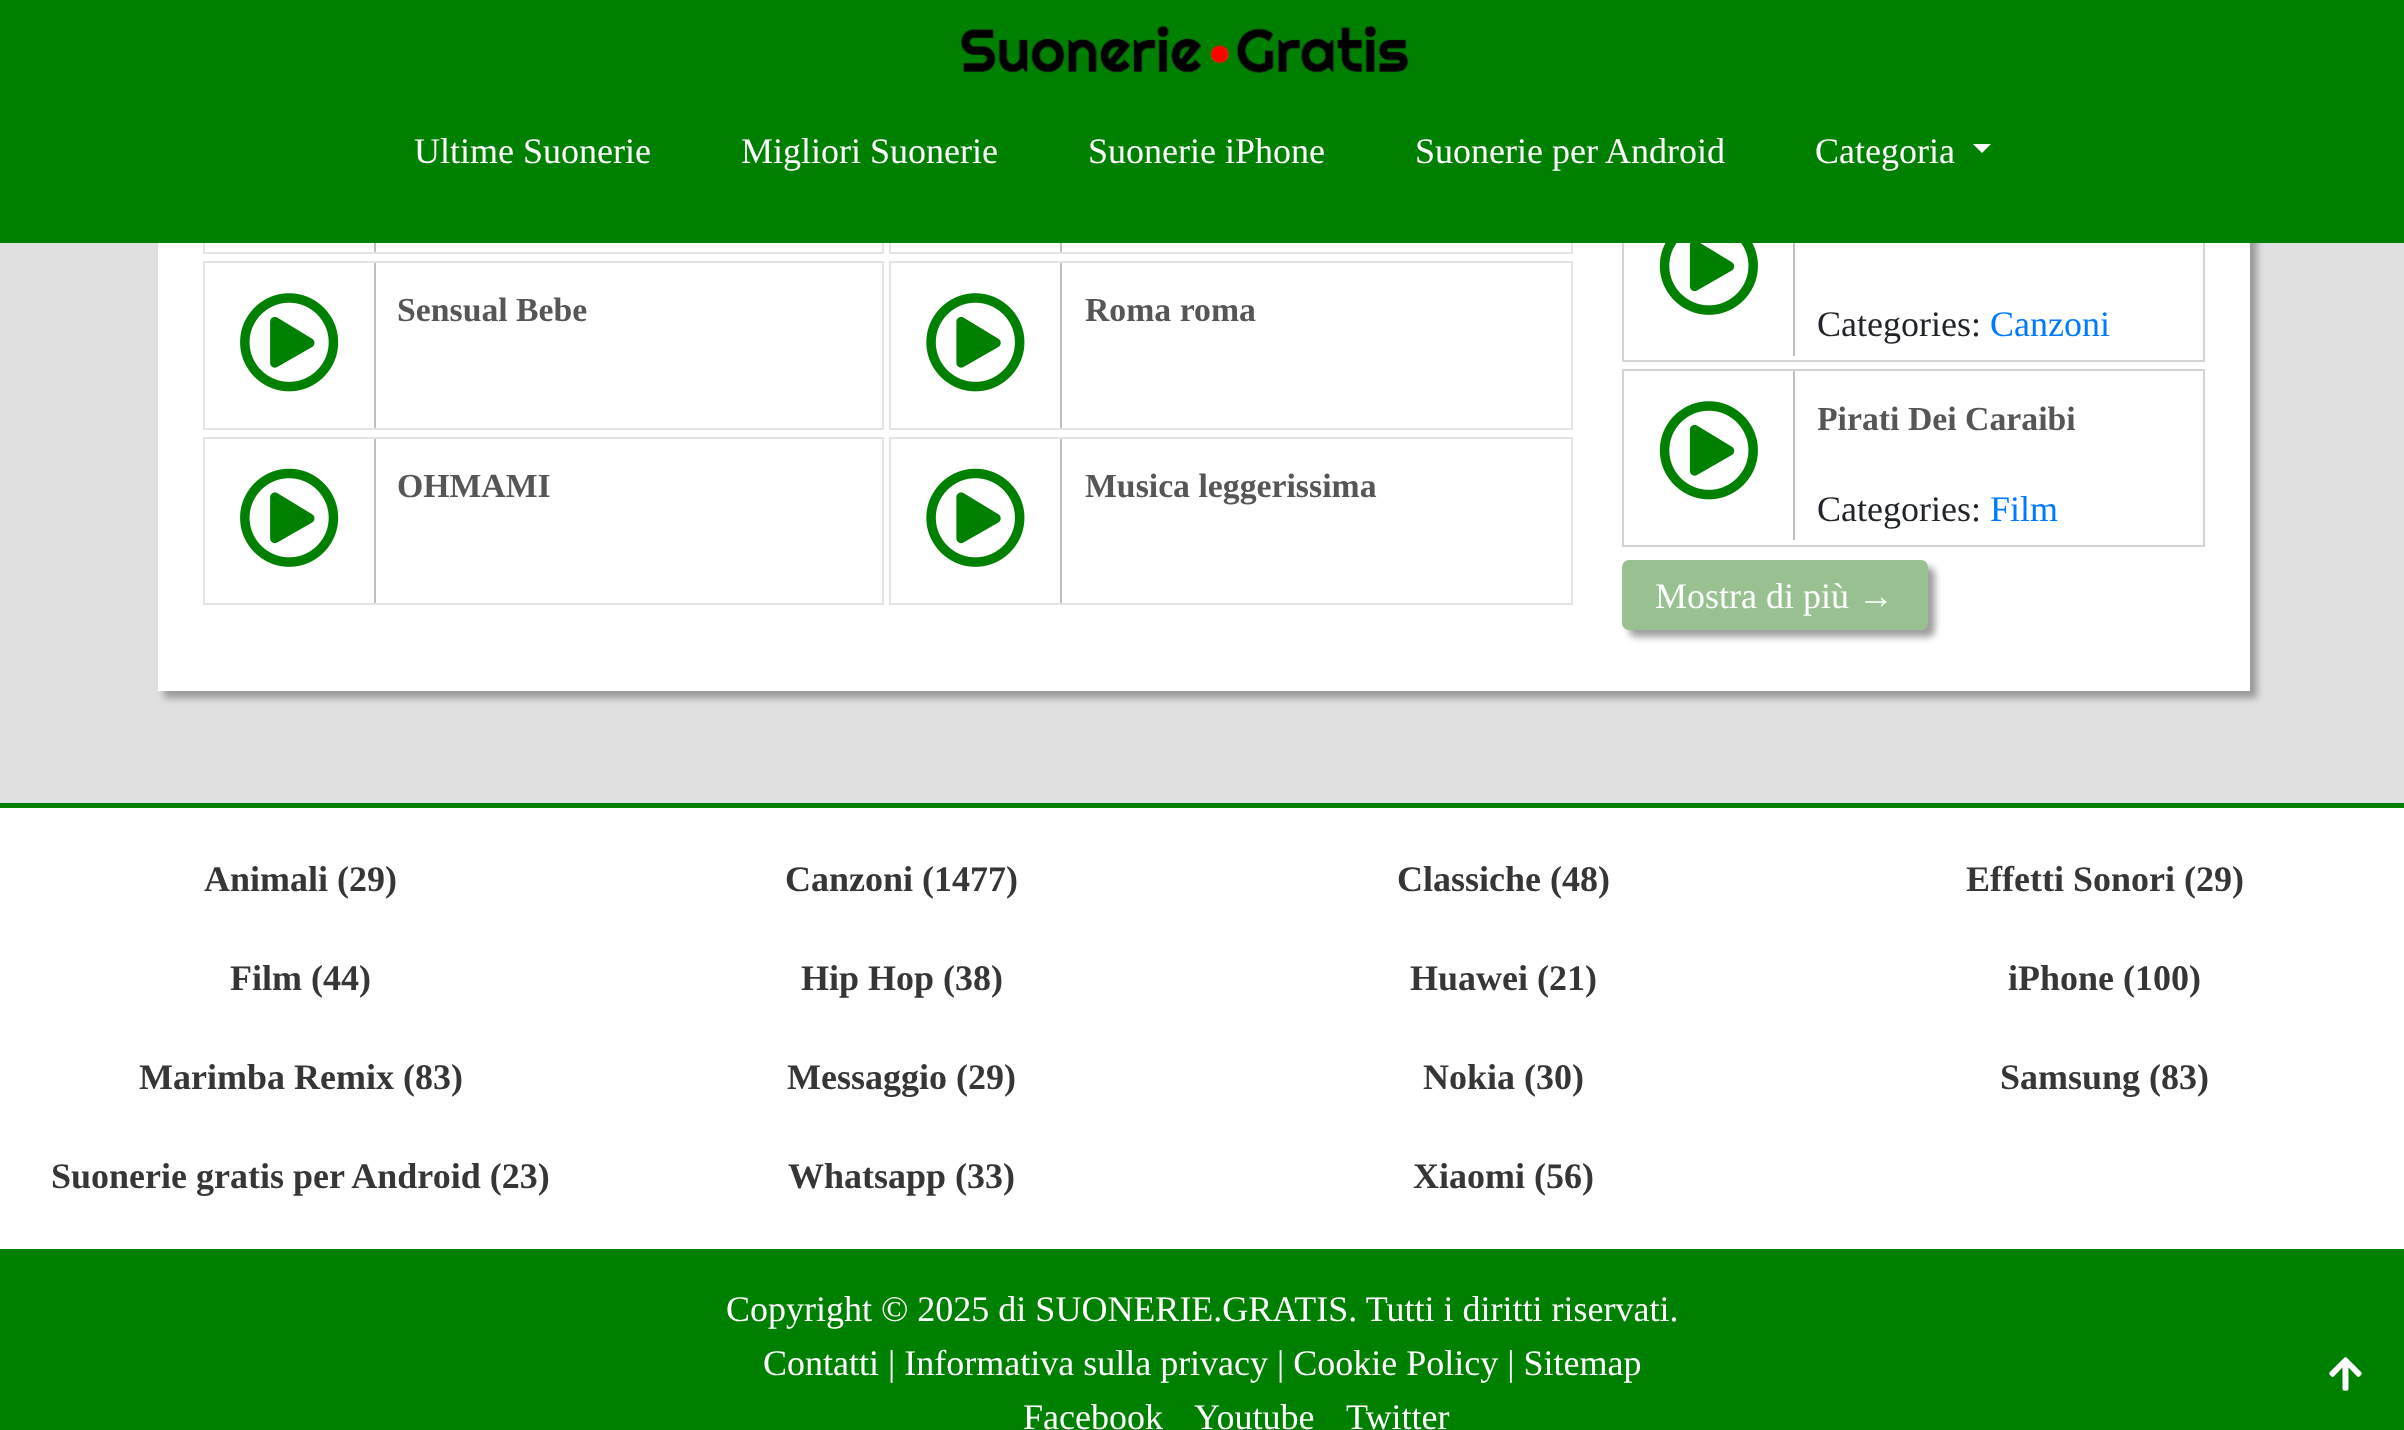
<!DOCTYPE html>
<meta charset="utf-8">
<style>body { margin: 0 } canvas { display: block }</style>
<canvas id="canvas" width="2404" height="1430"></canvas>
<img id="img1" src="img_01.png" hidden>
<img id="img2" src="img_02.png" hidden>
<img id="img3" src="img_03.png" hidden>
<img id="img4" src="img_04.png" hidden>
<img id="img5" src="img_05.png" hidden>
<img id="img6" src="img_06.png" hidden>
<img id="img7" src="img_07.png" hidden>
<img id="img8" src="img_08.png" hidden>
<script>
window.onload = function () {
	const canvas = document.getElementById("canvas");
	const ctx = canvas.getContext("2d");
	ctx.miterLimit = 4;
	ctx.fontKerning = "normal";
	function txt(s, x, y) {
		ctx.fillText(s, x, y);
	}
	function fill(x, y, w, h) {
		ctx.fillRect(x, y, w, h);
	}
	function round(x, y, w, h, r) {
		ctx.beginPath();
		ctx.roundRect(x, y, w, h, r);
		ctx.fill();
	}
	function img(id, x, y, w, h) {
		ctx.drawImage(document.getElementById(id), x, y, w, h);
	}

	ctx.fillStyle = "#E0E0E0";
	fill(0, 0, 2404, 1430);
	ctx.fillStyle = "#999999";
	ctx.filter = "blur(3.5px)";
	ctx.beginPath();
	ctx.rect(164, -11, 2093, 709);
	ctx.fill();
	ctx.filter = "none";
	ctx.fillStyle = "#FFFFFF";
	fill(158, 243, 2092, 448);
	ctx.strokeStyle = "#E4E4E4";
	ctx.lineWidth = 2;
	ctx.strokeRect(204, 87, 679, 166);
	ctx.strokeRect(890, 87, 682, 166);
	ctx.strokeStyle = "#D4D4D4";
	ctx.strokeRect(1623, 186, 581, 175);
	ctx.fillStyle = "#008000";
	fill(0, 0, 2404, 243);
	img("img1", 961, 25, 448, 49);
	ctx.fillStyle = "#FFFFFF";
	ctx.beginPath();
	ctx.moveTo(1973, 144);
	ctx.lineTo(1991, 144);
	ctx.lineTo(1982, 153);
	ctx.closePath();
	ctx.fill();
	ctx.fillStyle = "#BFBFBF";
	fill(374, 243, 2, 9);
	fill(1060, 243, 2, 9);
	ctx.strokeStyle = "#E4E4E4";
	ctx.strokeRect(204, 262, 679, 167);
	fill(374, 263, 2, 165);
	img("img2", 240, 293, 99, 99);
	ctx.strokeRect(890, 262, 682, 167);
	fill(1060, 263, 2, 165);
	img("img3", 926, 293, 99, 99);
	ctx.strokeRect(204, 438, 679, 166);
	fill(374, 439, 2, 164);
	img("img4", 240, 468, 99, 99);
	ctx.strokeRect(890, 438, 682, 166);
	fill(1060, 439, 2, 164);
	img("img5", 926, 468, 99, 99);
	fill(1793, 243, 2, 113);
	img("img6", 1659, 243, 99, 72);
	ctx.strokeStyle = "#D4D4D4";
	ctx.strokeRect(1623, 370, 581, 176);
	fill(1793, 371, 2, 169);
	img("img7", 1659, 401, 99, 99);
	ctx.fillStyle = "#9E9E9E";
	ctx.filter = "blur(3.5px)";
	ctx.beginPath();
	ctx.roundRect(1629, 567, 306, 70, 7);
	ctx.fill();
	ctx.filter = "none";
	ctx.fillStyle = "#99C091";
	round(1622, 560, 306, 70, 7);
	ctx.fillStyle = "#FFFFFF";
	fill(0, 808, 2404, 441);
	ctx.fillStyle = "#008000";
	fill(0, 803, 2404, 5);
	fill(0, 1249, 2404, 181);
	img("img8", 2329, 1357, 33, 34);
	ctx.font = "36px Liberation Serif";
	ctx.fillStyle = "#FFFFFF";
	txt("Ultime Suonerie", 414, 163);
	txt("Migliori Suonerie", 741, 163);
	txt("Suonerie iPhone", 1088, 163);
	txt("Suonerie per Android", 1415, 163);
	txt("Categoria", 1815, 163);
	ctx.font = "bold 33.75px Liberation Serif";
	ctx.fillStyle = "#565656";
	txt("Sensual Bebe", 397, 321);
	txt("Roma roma", 1085, 321);
	txt("OHMAMI", 397, 497);
	txt("Musica leggerissima", 1085, 497);
	ctx.font = "36px Liberation Serif";
	ctx.fillStyle = "#212529";
	txt("Categories:", 1817, 336);
	ctx.fillStyle = "#007BFF";
	txt("Canzoni", 1990, 336);
	ctx.save();
	ctx.beginPath();
	ctx.rect(1818, 394, 257, 74);
	ctx.clip();
	ctx.font = "bold 33.75px Liberation Serif";
	ctx.fillStyle = "#565656";
	txt("Pirati Dei Caraibi", 1817, 430);
	ctx.restore();
	ctx.fillStyle = "#212529";
	txt("Categories:", 1817, 521);
	ctx.fillStyle = "#007BFF";
	txt("Film", 1990, 521);
	ctx.fillStyle = "#FFFFFF";
	txt("Mostra di più →", 1655, 608);
	ctx.font = "bold 36px Liberation Serif";
	ctx.fillStyle = "#363636";
	txt("Animali (29)", 204, 891);
	txt("Canzoni (1477)", 785, 891);
	txt("Classiche (48)", 1397, 891);
	txt("Effetti Sonori (29)", 1966, 891);
	txt("Film (44)", 230, 990);
	txt("Hip Hop (38)", 801, 990);
	txt("Huawei (21)", 1410, 990);
	txt("iPhone (100)", 2008, 990);
	txt("Marimba Remix (83)", 139, 1089);
	txt("Messaggio (29)", 787, 1089);
	txt("Nokia (30)", 1423, 1089);
	txt("Samsung (83)", 2000, 1089);
	txt("Suonerie gratis per Android (23)", 51, 1188);
	txt("Whatsapp (33)", 788, 1188);
	txt("Xiaomi (56)", 1413, 1188);
	ctx.font = "36px Liberation Serif";
	ctx.fillStyle = "#FFFFFF";
	txt("Copyright © 2025 di SUONERIE.GRATIS. Tutti i diritti riservati.", 726, 1321);
	txt("Contatti | Informativa sulla privacy | Cookie Policy | Sitemap", 763, 1375);
	txt("Facebook", 1023, 1429);
	txt("Youtube", 1194, 1429);
	txt("Twitter", 1346, 1429);
};
</script>
